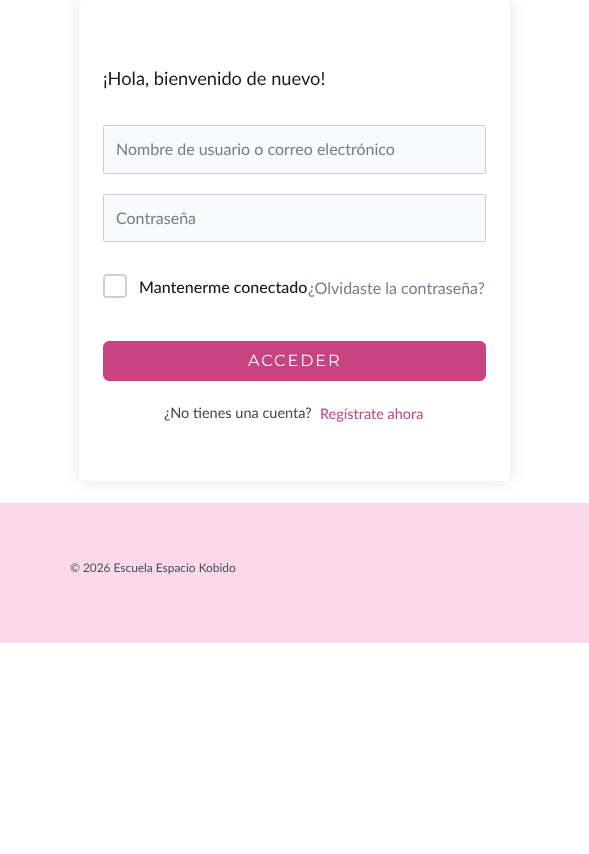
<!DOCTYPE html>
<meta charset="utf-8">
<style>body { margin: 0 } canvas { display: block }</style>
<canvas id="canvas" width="589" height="854"></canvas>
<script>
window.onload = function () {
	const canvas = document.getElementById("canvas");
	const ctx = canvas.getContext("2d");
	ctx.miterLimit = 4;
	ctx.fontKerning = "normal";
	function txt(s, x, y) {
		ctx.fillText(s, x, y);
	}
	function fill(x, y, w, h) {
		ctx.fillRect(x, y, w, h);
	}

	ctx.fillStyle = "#FFFFFF";
	fill(0, 0, 589, 854);
	ctx.fillStyle = "#FAD8E9";
	fill(0, 503, 589, 140);
	ctx.save();
	ctx.beginPath();
	ctx.moveTo(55, 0);
	ctx.lineTo(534, 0);
	ctx.lineTo(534, 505);
	ctx.lineTo(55, 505);
	ctx.closePath();
	ctx.moveTo(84, 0);
	ctx.lineTo(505, 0);
	ctx.bezierCurveTo(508, 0, 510, 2, 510, 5);
	ctx.lineTo(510, 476);
	ctx.bezierCurveTo(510, 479, 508, 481, 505, 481);
	ctx.lineTo(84, 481);
	ctx.bezierCurveTo(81, 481, 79, 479, 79, 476);
	ctx.lineTo(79, 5);
	ctx.bezierCurveTo(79, 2, 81, 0, 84, 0);
	ctx.closePath();
	ctx.clip("evenodd");
	ctx.fillStyle = "rgba(0, 0, 0, 0.1)";
	ctx.filter = "blur(7.5px)";
	ctx.beginPath();
	ctx.roundRect(79, 0, 431, 481, 5);
	ctx.fill();
	ctx.filter = "none";
	ctx.restore();
	ctx.fillStyle = "#F9FAFB";
	ctx.beginPath();
	ctx.roundRect(103.5, 125.5, 382, 48, 1.5);
	ctx.fill();
	ctx.strokeStyle = "#CDCFD5";
	ctx.stroke();
	ctx.beginPath();
	ctx.roundRect(103.5, 194.5, 382, 47, 1.5);
	ctx.fill();
	ctx.stroke();
	ctx.beginPath();
	ctx.roundRect(104, 275, 22, 22, 3);
	ctx.lineWidth = 2;
	ctx.stroke();
	ctx.fillStyle = "#C74382";
	ctx.beginPath();
	ctx.roundRect(103.5, 341.5, 382, 39, 5.5);
	ctx.fill();
	ctx.strokeStyle = "#C74382";
	ctx.lineWidth = 1;
	ctx.stroke();
	ctx.font = "18.25px Lato";
	ctx.fillStyle = "#1A1B1E";
	txt("¡Hola, bienvenido de nuevo!", 103, 85);
	ctx.font = "16px Lato";
	ctx.fillStyle = "#757C8E";
	txt("Nombre de usuario o correo electrónico", 116, 155);
	txt("Contraseña", 116, 224);
	ctx.font = "500 16px Lato";
	ctx.fillStyle = "#1A1B1E";
	txt("Mantenerme conectado", 139, 293);
	ctx.font = "16px Lato";
	ctx.fillStyle = "#757C8E";
	txt("¿Olvidaste la contraseña?", 308, 294);
	ctx.letterSpacing = "2px";
	ctx.font = "16px Montserrat";
	ctx.fillStyle = "#FFFFFF";
	txt("ACCEDER", 248, 366);
	ctx.letterSpacing = "0px";
	ctx.font = "14.5px Lato";
	ctx.fillStyle = "#41454F";
	txt("¿No tienes una cuenta?", 164, 418);
	ctx.fillStyle = "#C74382";
	txt("Regístrate ahora", 320, 419);
	ctx.font = "11.9px Lato";
	ctx.fillStyle = "#454F5E";
	txt("© 2026 Escuela Espacio Kobido", 70, 572);
};
</script>
